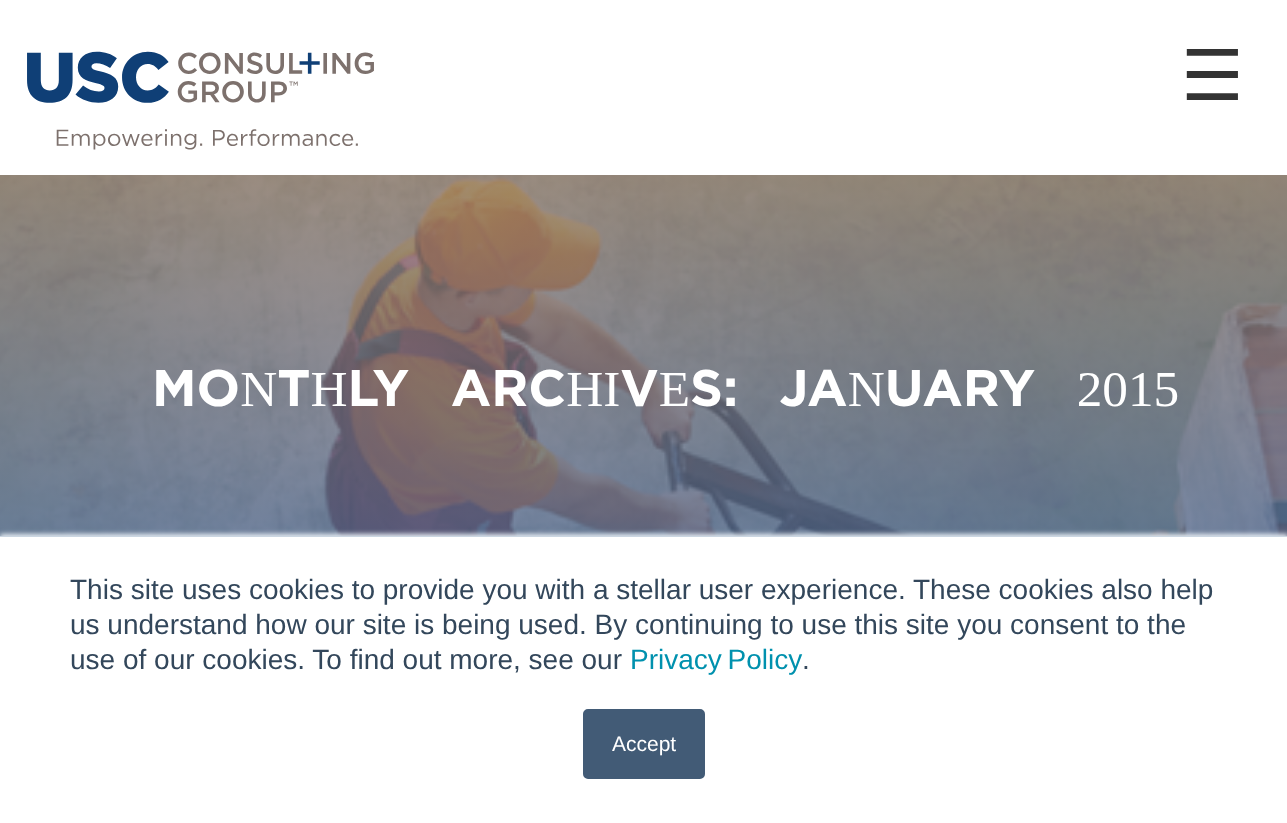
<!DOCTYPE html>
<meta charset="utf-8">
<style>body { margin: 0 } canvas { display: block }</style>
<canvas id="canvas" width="1287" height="823"></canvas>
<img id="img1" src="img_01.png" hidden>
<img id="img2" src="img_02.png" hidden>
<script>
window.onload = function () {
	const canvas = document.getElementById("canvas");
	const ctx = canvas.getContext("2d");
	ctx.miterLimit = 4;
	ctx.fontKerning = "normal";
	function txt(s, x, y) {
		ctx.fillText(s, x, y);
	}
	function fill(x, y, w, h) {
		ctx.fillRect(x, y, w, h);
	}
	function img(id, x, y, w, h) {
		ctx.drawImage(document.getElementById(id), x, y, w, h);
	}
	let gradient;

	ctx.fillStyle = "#FFFFFF";
	fill(0, 0, 1287, 823);
	img("img1", 27, 51, 347, 99);
	img("img2", 0, 175, 1287, 361);
	gradient = ctx.createLinearGradient(644, 175, 644, 604);
	gradient.addColorStop(0, "rgba(141, 119, 105, 0.8)");
	gradient.addColorStop(1, "rgba(75, 101, 145, 0.8)");
	ctx.fillStyle = gradient;
	fill(0, 175, 1287, 361);
	ctx.fillStyle = "#EAF0F6";
	ctx.filter = "blur(2.5px)";
	ctx.beginPath();
	ctx.rect(0, 534, 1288, 289);
	ctx.fill();
	ctx.filter = "none";
	ctx.fillStyle = "#CBD6E2";
	fill(0, 536, 1287, 1);
	ctx.fillStyle = "#FFFFFF";
	fill(0, 537, 1287, 286);
	ctx.fillStyle = "#425B76";
	ctx.beginPath();
	ctx.roundRect(584, 710, 120, 68, 4);
	ctx.fill();
	ctx.strokeStyle = "#425B76";
	ctx.lineWidth = 2;
	ctx.stroke();
	ctx.font = "70px DejaVu Sans";
	ctx.fillStyle = "#333333";
	txt("☰", 1181, 100);
	ctx.wordSpacing = "26px";
	ctx.font = "51.3px 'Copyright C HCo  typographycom'";
	ctx.fillStyle = "#FFFFFF";
	txt("MONTHLY ARCHIVES: JANUARY 2015", 152, 406);
	ctx.wordSpacing = "0px";
	ctx.font = "28px Liberation Sans";
	ctx.fillStyle = "#33475B";
	txt("This site uses cookies to provide you with a stellar user experience. These cookies also help", 70, 599);
	txt("us understand how our site is being used. By continuing to use this site you consent to the", 70, 634);
	txt("use of our cookies. To find out more, see our", 70, 669);
	ctx.wordSpacing = "-2px";
	ctx.fillStyle = "#0091AE";
	txt("Privacy Policy", 630, 669);
	ctx.wordSpacing = "0px";
	ctx.fillStyle = "#33475B";
	txt(".", 802, 669);
	ctx.font = "21px Liberation Sans";
	ctx.fillStyle = "#FFFFFF";
	txt("Accept", 612, 751);
};
</script>
